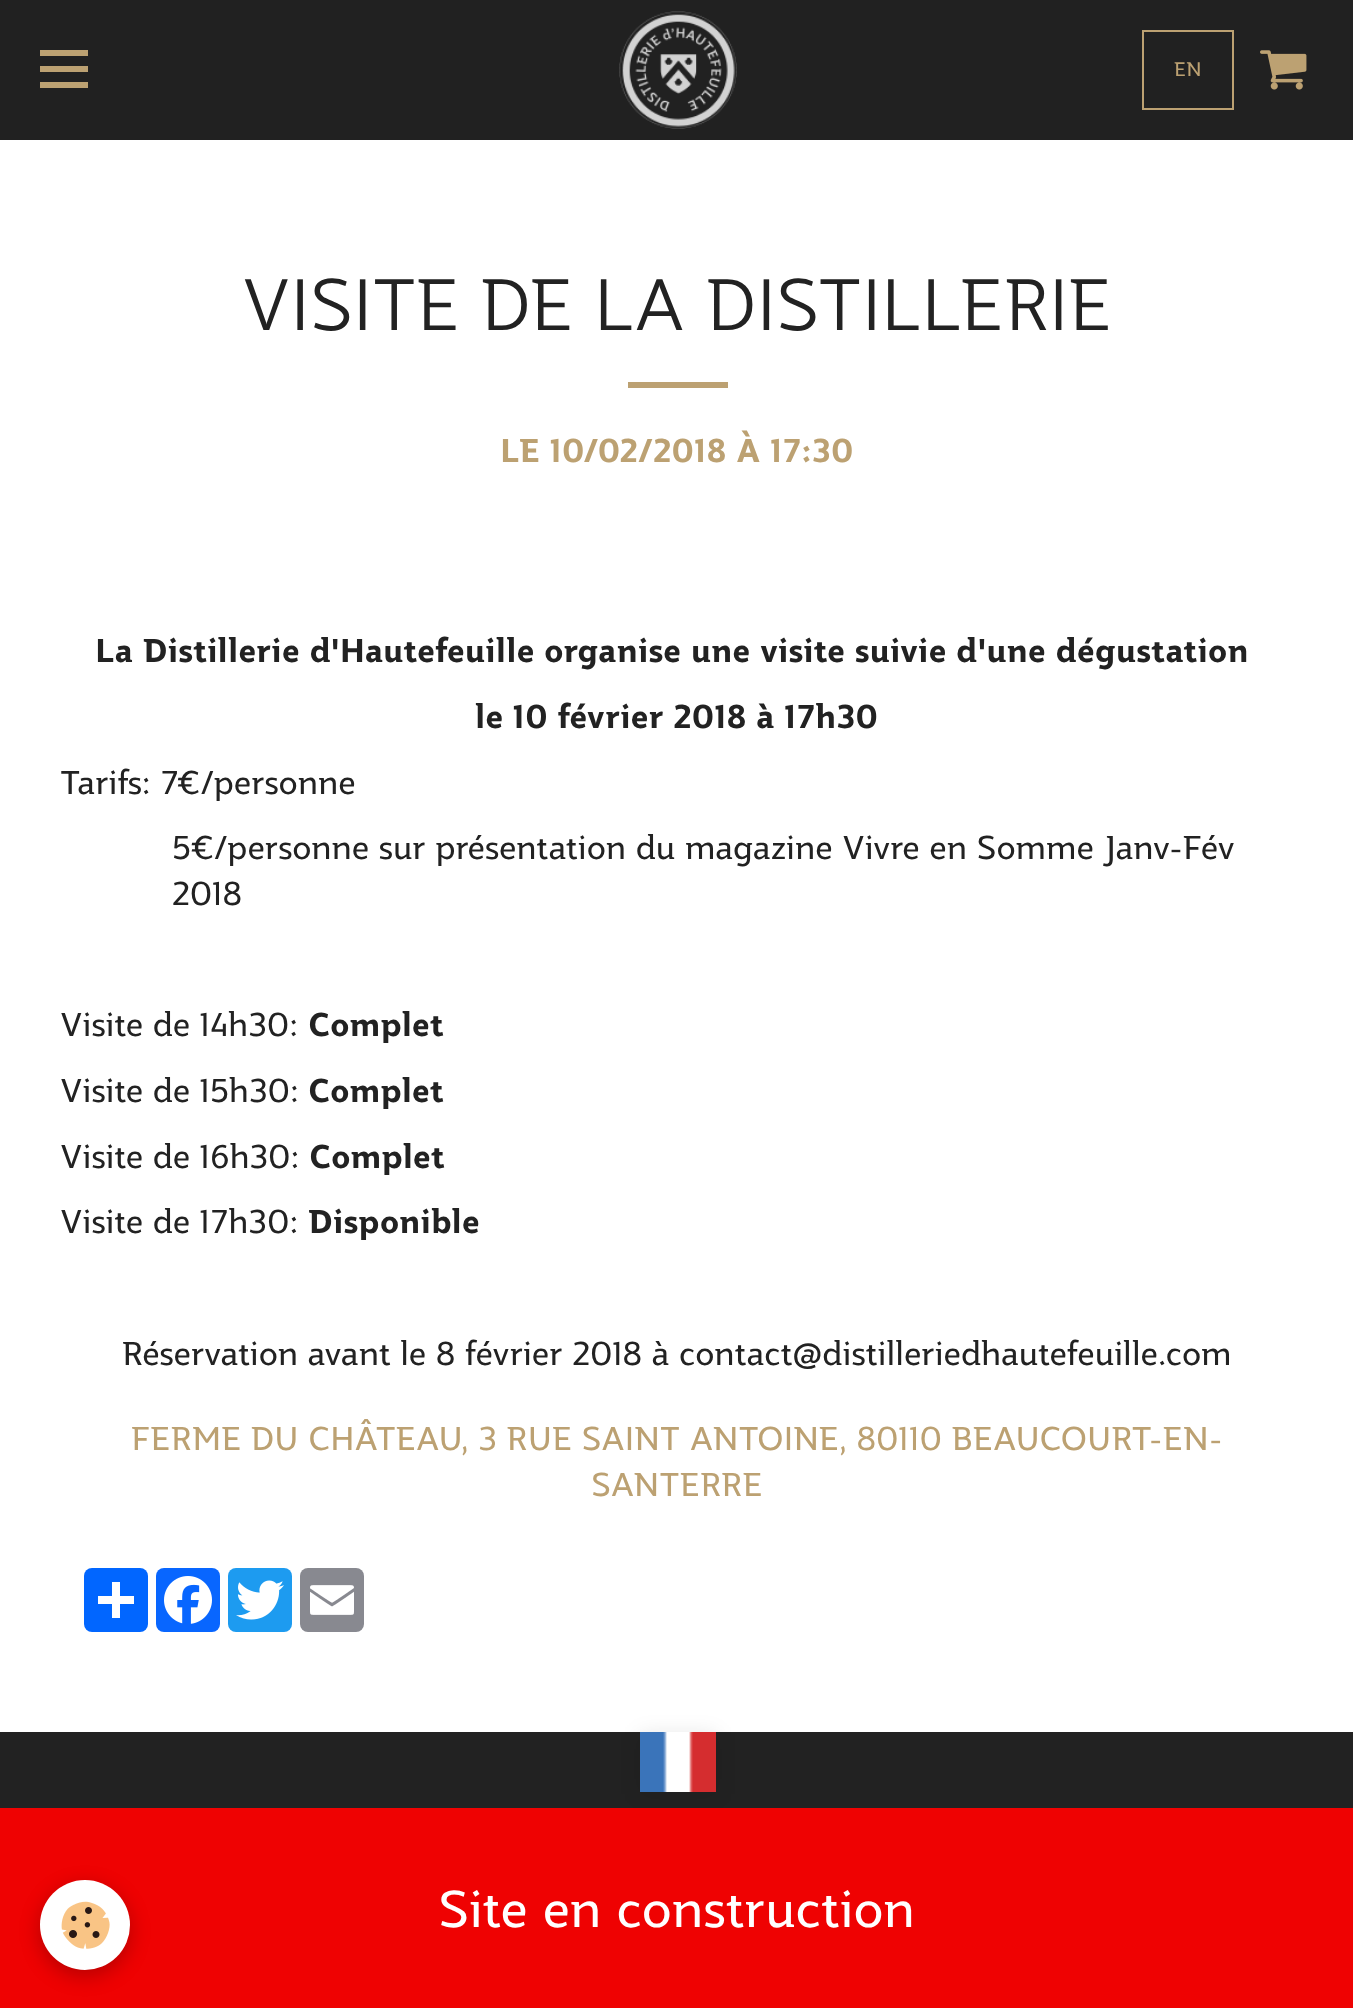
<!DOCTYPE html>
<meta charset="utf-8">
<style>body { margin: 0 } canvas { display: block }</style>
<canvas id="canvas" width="1353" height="2008"></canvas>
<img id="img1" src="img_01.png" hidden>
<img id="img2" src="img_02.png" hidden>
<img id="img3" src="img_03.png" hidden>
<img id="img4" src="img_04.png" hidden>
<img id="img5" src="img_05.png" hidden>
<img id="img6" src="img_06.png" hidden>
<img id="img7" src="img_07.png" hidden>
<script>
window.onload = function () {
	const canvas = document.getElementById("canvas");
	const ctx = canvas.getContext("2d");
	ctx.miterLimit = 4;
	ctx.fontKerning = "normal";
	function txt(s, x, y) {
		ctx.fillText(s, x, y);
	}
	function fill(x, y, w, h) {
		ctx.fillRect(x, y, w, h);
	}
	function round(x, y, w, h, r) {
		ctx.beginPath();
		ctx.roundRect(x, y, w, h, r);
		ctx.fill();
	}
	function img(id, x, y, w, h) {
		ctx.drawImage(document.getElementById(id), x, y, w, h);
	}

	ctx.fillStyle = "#FFFFFF";
	fill(0, 0, 1353, 2008);
	ctx.fillStyle = "#212121";
	fill(0, 0, 1353, 140);
	ctx.fillStyle = "#BCA172";
	fill(40, 66, 48, 6);
	fill(40, 50, 48, 6);
	fill(40, 82, 48, 6);
	img("img1", 619, 11, 118, 118);
	ctx.strokeStyle = "#BCA172";
	ctx.lineWidth = 2;
	ctx.strokeRect(1143, 31, 90, 78);
	img("img2", 1260, 50, 47, 40);
	fill(628, 382, 100, 6);
	ctx.fillStyle = "#0166FF";
	round(84, 1568, 64, 64, 8);
	ctx.fillStyle = "#FFFFFF";
	fill(112, 1582, 8, 36);
	fill(98, 1596, 36, 8);
	ctx.fillStyle = "#0866FF";
	round(156, 1568, 64, 64, 8);
	img("img3", 164, 1576, 48, 48);
	ctx.fillStyle = "#1D9BF0";
	round(228, 1568, 64, 64, 8);
	img("img4", 236, 1580, 48, 40);
	ctx.fillStyle = "#888990";
	round(300, 1568, 64, 64, 8);
	img("img5", 310, 1585, 44, 30);
	ctx.fillStyle = "#222222";
	fill(0, 1732, 1353, 276);
	ctx.fillStyle = "rgba(0, 0, 0, 0.1)";
	ctx.filter = "blur(10px)";
	ctx.beginPath();
	ctx.rect(640, 1734, 76, 60);
	ctx.fill();
	ctx.filter = "none";
	img("img6", 640, 1732, 76, 60);
	ctx.fillStyle = "rgba(255, 0, 0, 0.93)";
	fill(0, 1808, 1353, 200);
	ctx.fillStyle = "rgba(0, 0, 0, 0.24)";
	ctx.filter = "blur(10px)";
	ctx.beginPath();
	ctx.roundRect(40, 1886, 90, 90, 45);
	ctx.fill();
	ctx.filter = "none";
	ctx.fillStyle = "#FFFFFF";
	ctx.beginPath();
	ctx.arc(85, 1925, 45, 0, Math.PI * 2);
	ctx.fill();
	img("img7", 61, 1901, 49, 48);
	ctx.font = "19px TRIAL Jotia";
	ctx.fillStyle = "#BCA172";
	txt("EN", 1174, 76);
	ctx.font = "300 70.4px TRIAL Jotia";
	ctx.fillStyle = "#222222";
	txt("VISITE DE LA DISTILLERIE", 242, 330);
	ctx.font = "bold 32px TRIAL Jotia";
	ctx.fillStyle = "#BCA172";
	txt("LE 10/02/2018 À 17:30", 500, 462);
	ctx.fillStyle = "#222222";
	txt("La Distillerie d'Hautefeuille organise une visite suivie d'une dégustation", 95, 662);
	txt("le 10 février 2018 à 17h30", 475, 728);
	ctx.font = "32px TRIAL Jotia";
	txt("Tarifs: 7€/personne", 60, 794);
	txt("5€/personne sur présentation du magazine Vivre en Somme Janv-Fév", 172, 859);
	txt("2018", 172, 905);
	txt("Visite de 14h30:", 60, 1036);
	ctx.font = "bold 32px TRIAL Jotia";
	txt("Complet", 308, 1036);
	ctx.font = "32px TRIAL Jotia";
	txt("Visite de 15h30:", 60, 1102);
	ctx.font = "bold 32px TRIAL Jotia";
	txt("Complet", 308, 1102);
	ctx.font = "32px TRIAL Jotia";
	txt("Visite de 16h30:", 60, 1168);
	ctx.font = "bold 32px TRIAL Jotia";
	txt("Complet", 309, 1168);
	ctx.font = "32px TRIAL Jotia";
	txt("Visite de 17h30:", 60, 1233);
	ctx.font = "bold 32px TRIAL Jotia";
	txt("Disponible", 308, 1233);
	ctx.font = "32px TRIAL Jotia";
	txt("Réservation avant le 8 février 2018 à contact@distilleriedhautefeuille.com", 122, 1365);
	ctx.fillStyle = "#BCA172";
	txt("FERME DU CHÂTEAU, 3 RUE SAINT ANTOINE, 80110 BEAUCOURT-EN-", 131, 1450);
	txt("SANTERRE", 591, 1496);
	ctx.font = "50px TRIAL Jotia";
	ctx.fillStyle = "#FFFFFF";
	txt("Site en construction", 438, 1927);
};
</script>
